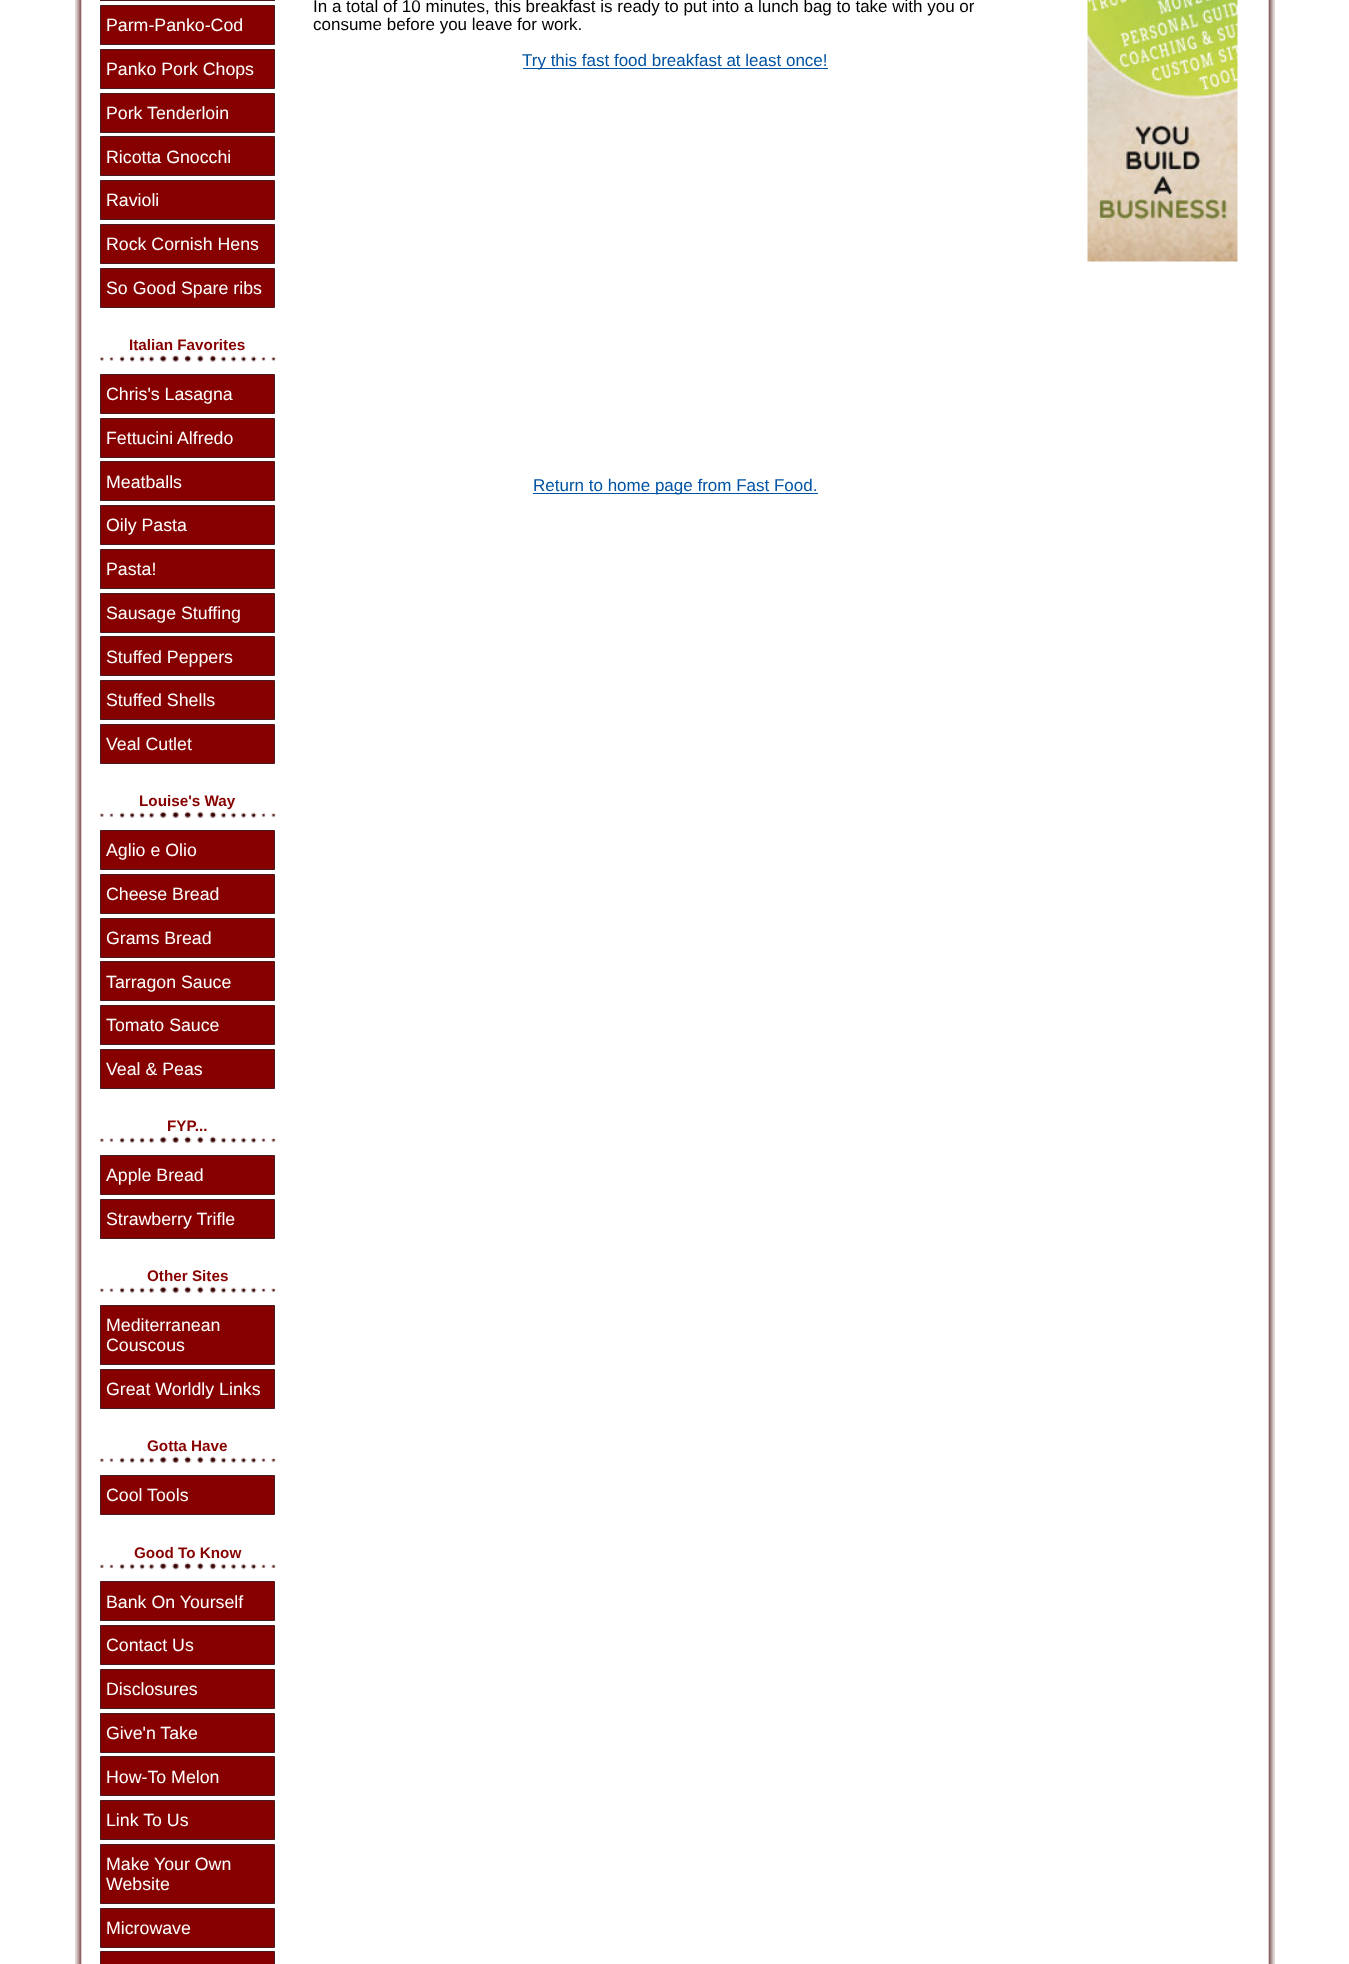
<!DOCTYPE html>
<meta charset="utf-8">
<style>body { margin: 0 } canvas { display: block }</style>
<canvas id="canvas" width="1349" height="1964"></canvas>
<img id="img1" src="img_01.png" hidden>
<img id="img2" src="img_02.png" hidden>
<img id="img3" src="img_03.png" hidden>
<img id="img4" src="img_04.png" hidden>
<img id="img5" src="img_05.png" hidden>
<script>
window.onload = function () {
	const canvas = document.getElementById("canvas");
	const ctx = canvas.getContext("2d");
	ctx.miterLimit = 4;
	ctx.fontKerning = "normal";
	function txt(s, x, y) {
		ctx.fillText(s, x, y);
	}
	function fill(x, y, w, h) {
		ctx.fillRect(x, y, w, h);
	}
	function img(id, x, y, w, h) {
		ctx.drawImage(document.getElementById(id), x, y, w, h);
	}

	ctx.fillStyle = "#FFFFFF";
	fill(0, 0, 1349, 1964);
	img("img1", 75, 0, 1200, 1964);
	ctx.strokeStyle = "#451B1F";
	ctx.strokeRect(100.5, -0.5, 174, 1);
	ctx.fillStyle = "#870000";
	ctx.beginPath();
	ctx.rect(100.5, 5.5, 174, 39);
	ctx.fill();
	ctx.stroke();
	ctx.beginPath();
	ctx.rect(100.5, 49.5, 174, 39);
	ctx.fill();
	ctx.stroke();
	ctx.beginPath();
	ctx.rect(100.5, 93.5, 174, 39);
	ctx.fill();
	ctx.stroke();
	ctx.beginPath();
	ctx.rect(100.5, 136.5, 174, 39);
	ctx.fill();
	ctx.stroke();
	ctx.beginPath();
	ctx.rect(100.5, 180.5, 174, 39);
	ctx.fill();
	ctx.stroke();
	ctx.beginPath();
	ctx.rect(100.5, 224.5, 174, 39);
	ctx.fill();
	ctx.stroke();
	ctx.beginPath();
	ctx.rect(100.5, 268.5, 174, 39);
	ctx.fill();
	ctx.stroke();
	img("img2", 99, 355, 177, 7);
	ctx.beginPath();
	ctx.rect(100.5, 374.5, 174, 39);
	ctx.fill();
	ctx.stroke();
	ctx.beginPath();
	ctx.rect(100.5, 418.5, 174, 39);
	ctx.fill();
	ctx.stroke();
	ctx.beginPath();
	ctx.rect(100.5, 461.5, 174, 39);
	ctx.fill();
	ctx.stroke();
	ctx.beginPath();
	ctx.rect(100.5, 505.5, 174, 39);
	ctx.fill();
	ctx.stroke();
	ctx.beginPath();
	ctx.rect(100.5, 549.5, 174, 39);
	ctx.fill();
	ctx.stroke();
	ctx.beginPath();
	ctx.rect(100.5, 593.5, 174, 39);
	ctx.fill();
	ctx.stroke();
	ctx.beginPath();
	ctx.rect(100.5, 636.5, 174, 39);
	ctx.fill();
	ctx.stroke();
	ctx.beginPath();
	ctx.rect(100.5, 680.5, 174, 39);
	ctx.fill();
	ctx.stroke();
	ctx.beginPath();
	ctx.rect(100.5, 724.5, 174, 39);
	ctx.fill();
	ctx.stroke();
	img("img3", 99, 811, 177, 7);
	ctx.beginPath();
	ctx.rect(100.5, 830.5, 174, 39);
	ctx.fill();
	ctx.stroke();
	ctx.beginPath();
	ctx.rect(100.5, 874.5, 174, 39);
	ctx.fill();
	ctx.stroke();
	ctx.beginPath();
	ctx.rect(100.5, 918.5, 174, 39);
	ctx.fill();
	ctx.stroke();
	ctx.beginPath();
	ctx.rect(100.5, 961.5, 174, 39);
	ctx.fill();
	ctx.stroke();
	ctx.beginPath();
	ctx.rect(100.5, 1005.5, 174, 39);
	ctx.fill();
	ctx.stroke();
	ctx.beginPath();
	ctx.rect(100.5, 1049.5, 174, 39);
	ctx.fill();
	ctx.stroke();
	img("img3", 99, 1136, 177, 7);
	ctx.beginPath();
	ctx.rect(100.5, 1155.5, 174, 39);
	ctx.fill();
	ctx.stroke();
	ctx.beginPath();
	ctx.rect(100.5, 1199.5, 174, 39);
	ctx.fill();
	ctx.stroke();
	img("img3", 99, 1286, 177, 7);
	ctx.beginPath();
	ctx.rect(100.5, 1305.5, 174, 59);
	ctx.fill();
	ctx.stroke();
	ctx.beginPath();
	ctx.rect(100.5, 1369.5, 174, 39);
	ctx.fill();
	ctx.stroke();
	img("img3", 99, 1456, 177, 7);
	ctx.beginPath();
	ctx.rect(100.5, 1475.5, 174, 39);
	ctx.fill();
	ctx.stroke();
	img("img4", 99, 1562, 177, 8);
	ctx.beginPath();
	ctx.rect(100.5, 1581.5, 174, 39);
	ctx.fill();
	ctx.stroke();
	ctx.beginPath();
	ctx.rect(100.5, 1625.5, 174, 39);
	ctx.fill();
	ctx.stroke();
	ctx.beginPath();
	ctx.rect(100.5, 1669.5, 174, 39);
	ctx.fill();
	ctx.stroke();
	ctx.beginPath();
	ctx.rect(100.5, 1713.5, 174, 39);
	ctx.fill();
	ctx.stroke();
	ctx.beginPath();
	ctx.rect(100.5, 1756.5, 174, 39);
	ctx.fill();
	ctx.stroke();
	ctx.beginPath();
	ctx.rect(100.5, 1800.5, 174, 39);
	ctx.fill();
	ctx.stroke();
	ctx.beginPath();
	ctx.rect(100.5, 1844.5, 174, 59);
	ctx.fill();
	ctx.stroke();
	ctx.beginPath();
	ctx.rect(100.5, 1908.5, 174, 39);
	ctx.fill();
	ctx.stroke();
	ctx.beginPath();
	ctx.rect(100.5, 1951.5, 174, 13);
	ctx.fill();
	ctx.stroke();
	ctx.fillStyle = "#0052A3";
	fill(523, 68, 305, 1);
	fill(533, 493, 285, 1);
	img("img5", 1087, 0, 151, 262);
	ctx.font = "17.75px Liberation Sans";
	ctx.fillStyle = "#FFFFFF";
	txt("Parm-Panko-Cod", 106, 31);
	txt("Panko Pork Chops", 106, 75);
	txt("Pork Tenderloin", 106, 119);
	txt("Ricotta Gnocchi", 106, 163);
	txt("Ravioli", 106, 206);
	txt("Rock Cornish Hens", 106, 250);
	txt("So Good Spare ribs", 106, 294);
	ctx.font = "bold 15.25px Liberation Sans";
	ctx.fillStyle = "#870000";
	txt("Italian Favorites", 129, 350);
	ctx.font = "17.75px Liberation Sans";
	ctx.fillStyle = "#FFFFFF";
	txt("Chris's Lasagna", 106, 400);
	txt("Fettucini Alfredo", 106, 444);
	txt("Meatballs", 106, 488);
	txt("Oily Pasta", 106, 531);
	txt("Pasta!", 106, 575);
	txt("Sausage Stuffing", 106, 619);
	txt("Stuffed Peppers", 106, 663);
	txt("Stuffed Shells", 106, 706);
	txt("Veal Cutlet", 106, 750);
	ctx.font = "bold 15.25px Liberation Sans";
	ctx.fillStyle = "#870000";
	txt("Louise's Way", 139, 806);
	ctx.font = "17.75px Liberation Sans";
	ctx.fillStyle = "#FFFFFF";
	txt("Aglio e Olio", 106, 856);
	txt("Cheese Bread", 106, 900);
	txt("Grams Bread", 106, 944);
	txt("Tarragon Sauce", 106, 988);
	txt("Tomato Sauce", 106, 1031);
	txt("Veal & Peas", 106, 1075);
	ctx.font = "bold 15.25px Liberation Sans";
	ctx.fillStyle = "#870000";
	txt("FYP...", 167, 1131);
	ctx.font = "17.75px Liberation Sans";
	ctx.fillStyle = "#FFFFFF";
	txt("Apple Bread", 106, 1181);
	txt("Strawberry Trifle", 106, 1225);
	ctx.font = "bold 15.25px Liberation Sans";
	ctx.fillStyle = "#870000";
	txt("Other Sites", 147, 1281);
	ctx.font = "17.75px Liberation Sans";
	ctx.fillStyle = "#FFFFFF";
	txt("Mediterranean", 106, 1331);
	txt("Couscous", 106, 1351);
	txt("Great Worldly Links", 106, 1395);
	ctx.font = "bold 15.25px Liberation Sans";
	ctx.fillStyle = "#870000";
	txt("Gotta Have", 147, 1451);
	ctx.font = "17.75px Liberation Sans";
	ctx.fillStyle = "#FFFFFF";
	txt("Cool Tools", 106, 1501);
	ctx.font = "bold 15.25px Liberation Sans";
	ctx.fillStyle = "#870000";
	txt("Good To Know", 134, 1558);
	ctx.font = "17.75px Liberation Sans";
	ctx.fillStyle = "#FFFFFF";
	txt("Bank On Yourself", 106, 1608);
	txt("Contact Us", 106, 1651);
	txt("Disclosures", 106, 1695);
	txt("Give'n Take", 106, 1739);
	txt("How-To Melon", 106, 1783);
	txt("Link To Us", 106, 1826);
	txt("Make Your Own", 106, 1870);
	txt("Website", 106, 1890);
	txt("Microwave", 106, 1934);
	ctx.font = "17px Liberation Sans";
	ctx.fillStyle = "#000000";
	txt("In a total of 10 minutes, this breakfast is ready to put into a lunch bag to take with you or", 313, 12);
	txt("consume before you leave for work.", 313, 30);
	ctx.fillStyle = "#0052A3";
	txt("Try this fast food breakfast at least once!", 522, 66);
	txt("Return to home page from Fast Food.", 533, 491);
};
</script>
